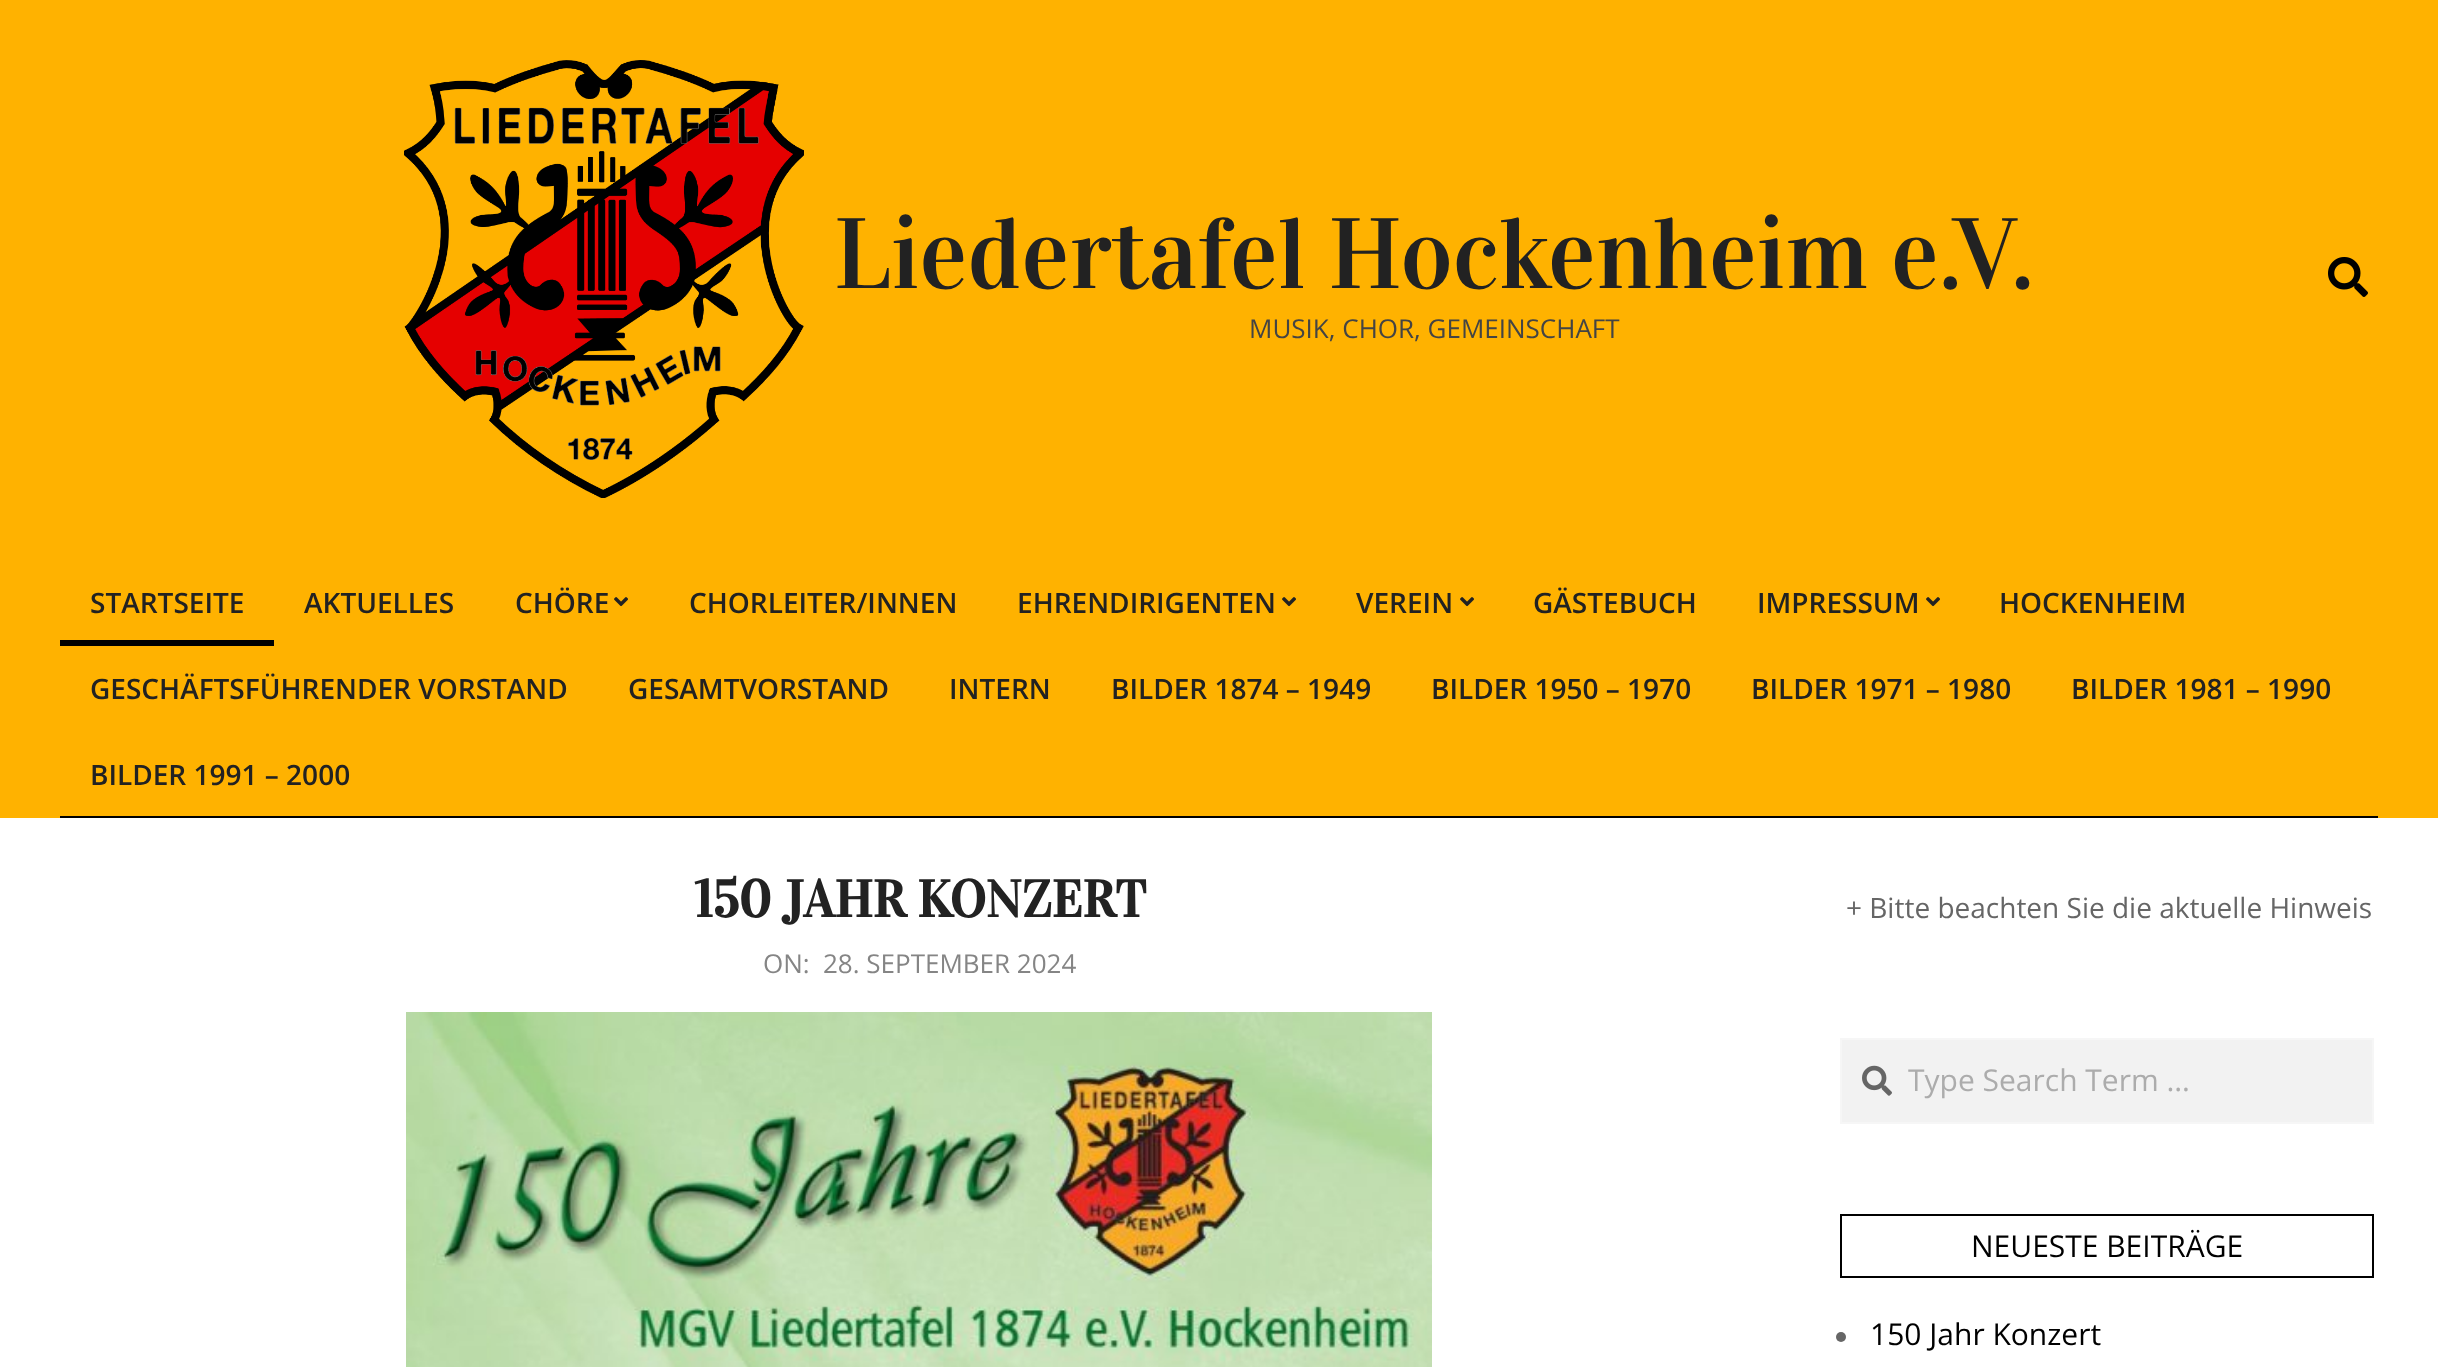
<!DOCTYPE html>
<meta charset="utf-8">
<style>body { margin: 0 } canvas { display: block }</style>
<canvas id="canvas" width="2438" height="1367"></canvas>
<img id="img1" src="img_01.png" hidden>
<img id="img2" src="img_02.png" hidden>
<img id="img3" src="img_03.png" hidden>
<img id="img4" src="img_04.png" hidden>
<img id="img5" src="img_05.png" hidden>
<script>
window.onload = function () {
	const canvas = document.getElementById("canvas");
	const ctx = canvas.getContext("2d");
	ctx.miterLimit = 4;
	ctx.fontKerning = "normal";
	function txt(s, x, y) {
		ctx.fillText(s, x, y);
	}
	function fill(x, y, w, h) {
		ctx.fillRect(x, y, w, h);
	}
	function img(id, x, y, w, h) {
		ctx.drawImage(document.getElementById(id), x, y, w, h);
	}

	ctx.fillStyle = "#FFB200";
	fill(0, 0, 2438, 1367);
	img("img1", 404, 60, 400, 438);
	img("img2", 2328, 257, 40, 40);
	ctx.fillStyle = "#000000";
	fill(60, 816, 2318, 2);
	fill(60, 640, 214, 6);
	img("img3", 614, 597, 14, 10);
	img("img3", 1282, 597, 14, 10);
	img("img3", 1460, 597, 14, 10);
	img("img3", 1926, 597, 14, 10);
	ctx.fillStyle = "#FFFFFF";
	fill(0, 818, 2438, 549);
	img("img4", 406, 1012, 1026, 355);
	ctx.fillStyle = "#F2F2F2";
	ctx.beginPath();
	ctx.rect(1841, 1039, 532, 84);
	ctx.fill();
	ctx.strokeStyle = "#F6F6F6";
	ctx.lineWidth = 2;
	ctx.stroke();
	img("img5", 1862, 1065, 30, 31);
	ctx.strokeStyle = "#000000";
	ctx.strokeRect(1841, 1215, 532, 62);
	ctx.fillStyle = "#666666";
	ctx.beginPath();
	ctx.arc(1841, 1337, 5, 0, Math.PI * 2);
	ctx.fill();
	ctx.font = "100px Vidaloka";
	ctx.fillStyle = "#222222";
	txt("Liedertafel Hockenheim e.V.", 834, 288);
	ctx.font = "26px Open Sans";
	ctx.fillStyle = "#444444";
	txt("MUSIK, CHOR, GEMEINSCHAFT", 1249, 338);
	ctx.font = "600 28px Open Sans";
	ctx.fillStyle = "#222222";
	txt("STARTSEITE", 90, 613);
	txt("AKTUELLES", 304, 613);
	txt("CHÖRE", 515, 613);
	txt("CHORLEITER/INNEN", 689, 613);
	txt("EHRENDIRIGENTEN", 1017, 613);
	txt("VEREIN", 1356, 613);
	txt("GÄSTEBUCH", 1533, 613);
	txt("IMPRESSUM", 1757, 613);
	txt("HOCKENHEIM", 1999, 613);
	txt("GESCHÄFTSFÜHRENDER VORSTAND", 90, 699);
	txt("GESAMTVORSTAND", 628, 699);
	txt("INTERN", 949, 699);
	txt("BILDER 1874 – 1949", 1111, 699);
	txt("BILDER 1950 – 1970", 1431, 699);
	txt("BILDER 1971 – 1980", 1751, 699);
	txt("BILDER 1981 – 1990", 2071, 699);
	txt("BILDER 1991 – 2000", 90, 785);
	ctx.font = "bold 52px Vidaloka";
	txt("150 JAHR KONZERT", 694, 917);
	ctx.font = "26px Open Sans";
	ctx.fillStyle = "#858585";
	txt("ON:", 763, 973);
	txt("28. SEPTEMBER 2024", 823, 973);
	ctx.font = "28px Open Sans";
	ctx.fillStyle = "#666666";
	txt("+ Bitte beachten Sie die aktuelle Hinweis", 1846, 918);
	ctx.save();
	ctx.beginPath();
	ctx.rect(1908, 1060, 428, 40);
	ctx.clip();
	ctx.font = "30px Open Sans";
	ctx.fillStyle = "#ACACAC";
	txt("Type Search Term …", 1908, 1091);
	ctx.restore();
	ctx.font = "30px Open Sans";
	ctx.fillStyle = "#000000";
	txt("NEUESTE BEITRÄGE", 1971, 1257);
	txt("150 Jahr Konzert", 1870, 1345);
};
</script>
